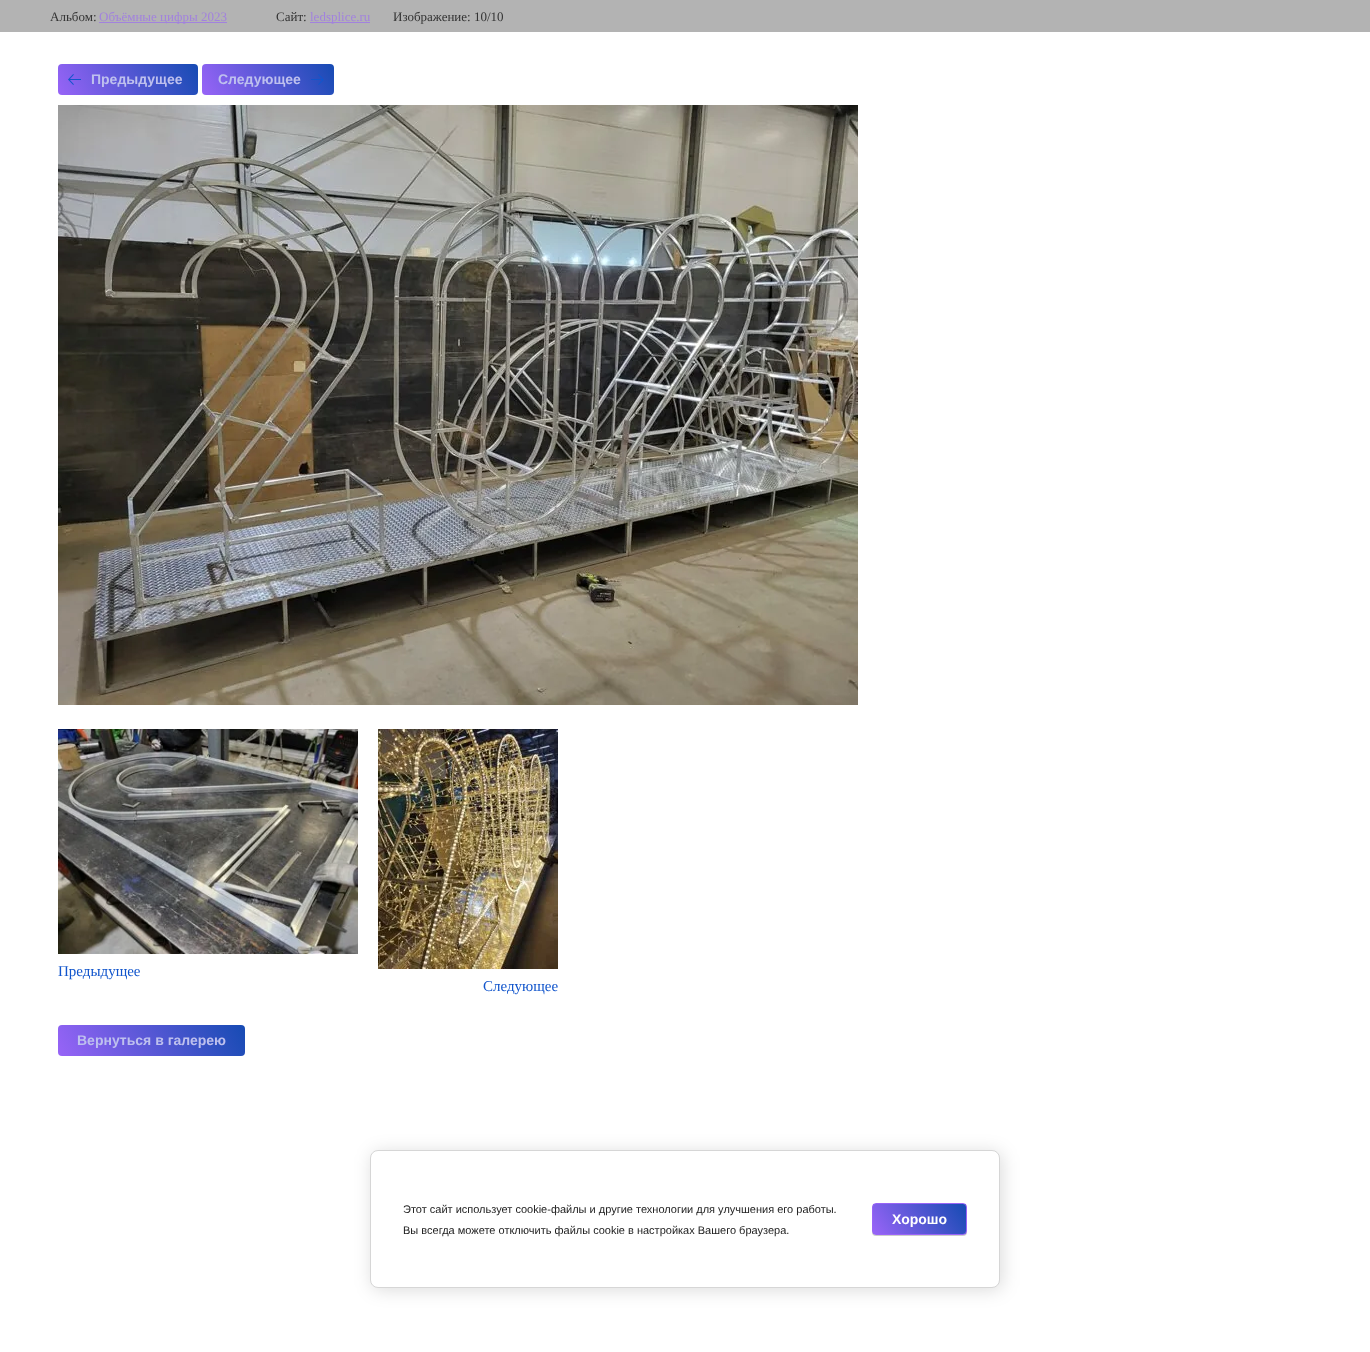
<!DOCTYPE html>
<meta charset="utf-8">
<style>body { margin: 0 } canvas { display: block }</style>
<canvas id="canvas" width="1370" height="1352"></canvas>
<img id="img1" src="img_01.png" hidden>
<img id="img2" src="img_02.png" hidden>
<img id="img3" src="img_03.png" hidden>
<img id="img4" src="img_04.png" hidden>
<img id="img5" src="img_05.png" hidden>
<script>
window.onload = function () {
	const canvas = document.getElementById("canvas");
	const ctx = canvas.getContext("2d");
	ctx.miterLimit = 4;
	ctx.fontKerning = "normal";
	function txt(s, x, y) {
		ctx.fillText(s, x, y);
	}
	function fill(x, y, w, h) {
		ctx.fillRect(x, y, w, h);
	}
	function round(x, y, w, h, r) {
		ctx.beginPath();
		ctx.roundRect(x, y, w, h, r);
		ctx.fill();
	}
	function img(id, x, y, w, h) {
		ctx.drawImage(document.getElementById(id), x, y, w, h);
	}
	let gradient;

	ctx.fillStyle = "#FFFFFF";
	fill(0, 0, 1370, 1352);
	ctx.fillStyle = "#B3B3B3";
	fill(0, 0, 1370, 32);
	ctx.fillStyle = "#A282DD";
	fill(99, 22, 128, 1);
	fill(310, 22, 60, 1);
	gradient = ctx.createLinearGradient(67, 112, 189, 47);
	gradient.addColorStop(0, "#9864F7");
	gradient.addColorStop(1, "#164BB3");
	ctx.fillStyle = gradient;
	round(58, 64, 140, 31, 4);
	img("img1", 68, 74, 13, 11);
	gradient = ctx.createLinearGradient(210, 110, 326, 49);
	gradient.addColorStop(0, "#9864F7");
	gradient.addColorStop(1, "#164BB3");
	ctx.fillStyle = gradient;
	round(202, 64, 132, 31, 4);
	img("img2", 311, 74, 13, 11);
	img("img3", 58, 105, 800, 600);
	img("img4", 58, 729, 300, 225);
	img("img5", 378, 729, 180, 240);
	gradient = ctx.createLinearGradient(72, 1083, 231, 998);
	gradient.addColorStop(0, "#9864F7");
	gradient.addColorStop(1, "#164BB3");
	ctx.fillStyle = gradient;
	round(58, 1025, 187, 31, 4);
	ctx.fillStyle = "rgba(0, 0, 0, 0.14)";
	ctx.filter = "blur(9px)";
	ctx.beginPath();
	ctx.roundRect(372, 1152, 630, 138, 8);
	ctx.fill();
	ctx.filter = "none";
	ctx.fillStyle = "#FFFFFF";
	ctx.beginPath();
	ctx.roundRect(370.5, 1150.5, 629, 137, 7.5);
	ctx.fill();
	ctx.strokeStyle = "#D6D6D6";
	ctx.stroke();
	ctx.fillStyle = "rgba(0, 0, 0, 0.2)";
	ctx.filter = "blur(0.5px)";
	ctx.beginPath();
	ctx.roundRect(872, 1204, 95, 32, 4);
	ctx.fill();
	ctx.filter = "none";
	ctx.save();
	ctx.beginPath();
	ctx.roundRect(872, 1203, 95, 32, 4);
	ctx.clip();
	gradient = ctx.createLinearGradient(881, 1245, 958, 1193);
	gradient.addColorStop(0, "#9864F7");
	gradient.addColorStop(1, "#164BB3");
	ctx.fillStyle = gradient;
	fill(873, 1204, 93, 30);
	ctx.restore();
	ctx.beginPath();
	ctx.roundRect(872.5, 1203.5, 94, 31, 3.5);
	ctx.strokeStyle = "#9864F7";
	ctx.stroke();
	ctx.font = "13px Liberation Serif";
	ctx.fillStyle = "#333333";
	txt("Альбом:", 50, 21);
	ctx.fillStyle = "#A282DE";
	txt("Объёмные цифры 2023", 99, 21);
	ctx.fillStyle = "#333333";
	txt("Сайт:", 276, 21);
	ctx.fillStyle = "#A282DE";
	txt("ledsplice.ru", 310, 21);
	ctx.fillStyle = "#333333";
	txt("Изображение: 10/10", 393, 21);
	ctx.font = "bold 14px Liberation Sans";
	ctx.fillStyle = "#BEC0EE";
	txt("Предыдущее", 91, 84);
	txt("Следующее", 218, 84);
	ctx.font = "15px Liberation Serif";
	ctx.fillStyle = "#1155CC";
	txt("Предыдущее", 58, 976);
	txt("Следующее", 483, 991);
	ctx.font = "bold 14px Liberation Sans";
	ctx.fillStyle = "#BEC0EE";
	txt("Вернуться в галерею", 77, 1045);
	ctx.font = "11px Liberation Sans";
	ctx.fillStyle = "#212121";
	txt("Этот сайт использует cookie-файлы и другие технологии для улучшения его работы.", 403, 1213);
	txt("Вы всегда можете отключить файлы cookie в настройках Вашего браузера.", 403, 1234);
	ctx.font = "bold 14px Liberation Sans";
	ctx.fillStyle = "#FFFFFF";
	txt("Хорошо", 892, 1224);
};
</script>
